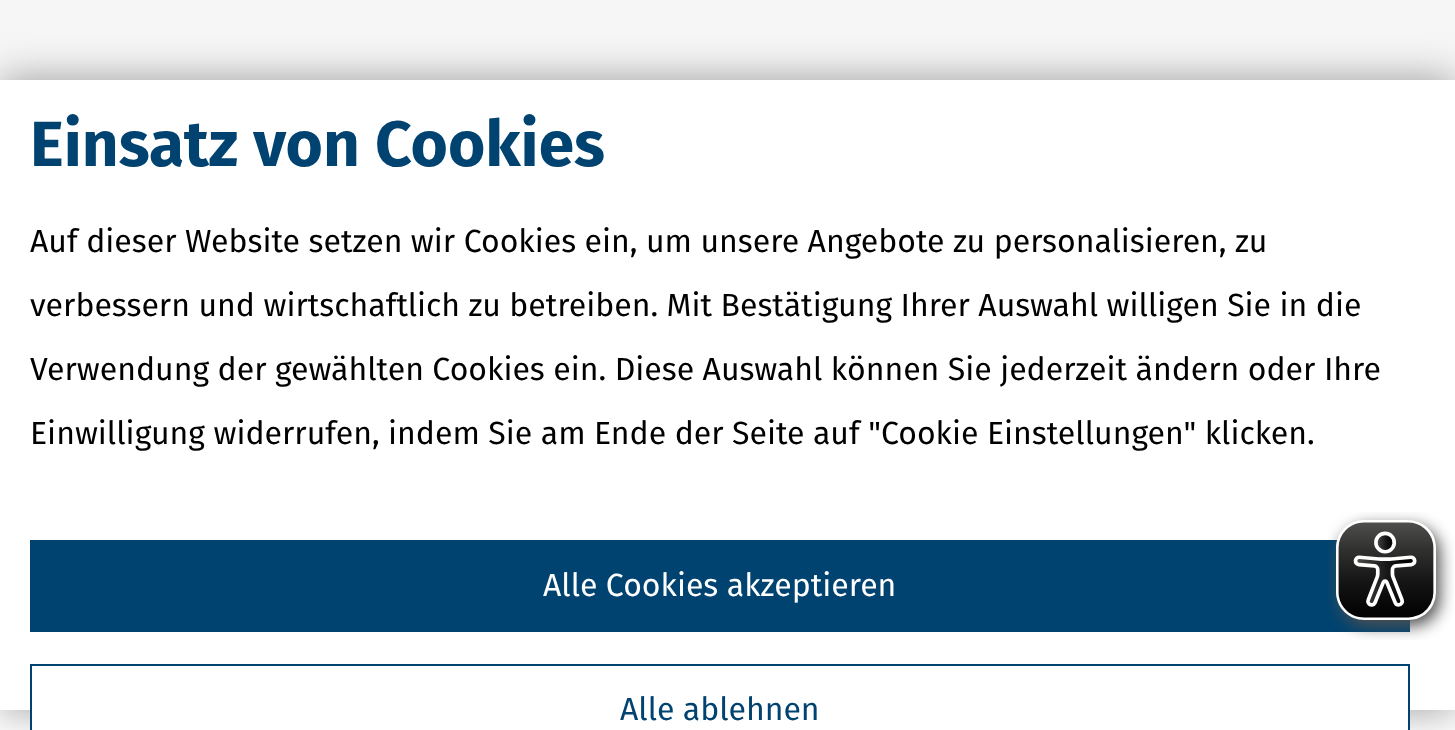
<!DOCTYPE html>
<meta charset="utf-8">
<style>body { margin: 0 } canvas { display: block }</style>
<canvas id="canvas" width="1455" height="730"></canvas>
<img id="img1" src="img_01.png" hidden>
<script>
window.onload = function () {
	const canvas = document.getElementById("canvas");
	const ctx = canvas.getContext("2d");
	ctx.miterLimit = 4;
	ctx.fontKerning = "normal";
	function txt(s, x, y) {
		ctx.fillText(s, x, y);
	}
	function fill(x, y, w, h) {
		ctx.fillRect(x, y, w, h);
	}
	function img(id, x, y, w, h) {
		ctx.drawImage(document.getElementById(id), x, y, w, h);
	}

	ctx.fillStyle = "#FDFDFD";
	fill(0, 0, 1455, 730);
	ctx.fillStyle = "#F6F6F6";
	fill(0, 0, 1455, 80);
	ctx.fillStyle = "#999999";
	ctx.filter = "blur(20px)";
	ctx.beginPath();
	ctx.rect(0, 80, 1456, 630);
	ctx.fill();
	ctx.filter = "none";
	ctx.fillStyle = "#FFFFFF";
	fill(0, 80, 1455, 630);
	ctx.fillStyle = "#004370";
	fill(30, 540, 1380, 92);
	ctx.fillStyle = "#FFFFFF";
	fill(32, 710, 1376, 20);
	ctx.strokeStyle = "#004370";
	ctx.lineWidth = 2;
	ctx.strokeRect(31, 665, 1378, 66);
	img("img1", 1328, 512, 126, 128);
	ctx.font = "bold 64px Fira Sans";
	ctx.fillStyle = "#004370";
	txt("Einsatz von Cookies", 30, 166);
	ctx.font = "32px Fira Sans";
	ctx.fillStyle = "#000000";
	txt("Auf dieser Website setzen wir Cookies ein, um unsere Angebote zu personalisieren, zu", 30, 252);
	txt("verbessern und wirtschaftlich zu betreiben. Mit Bestätigung Ihrer Auswahl willigen Sie in die", 30, 316);
	txt("Verwendung der gewählten Cookies ein. Diese Auswahl können Sie jederzeit ändern oder Ihre", 30, 380);
	txt("Einwilligung widerrufen, indem Sie am Ende der Seite auf \"Cookie Einstellungen\" klicken.", 30, 444);
	ctx.fillStyle = "#FFFFFF";
	txt("Alle Cookies akzeptieren", 543, 596);
	ctx.fillStyle = "#004370";
	txt("Alle ablehnen", 620, 720);
};
</script>
